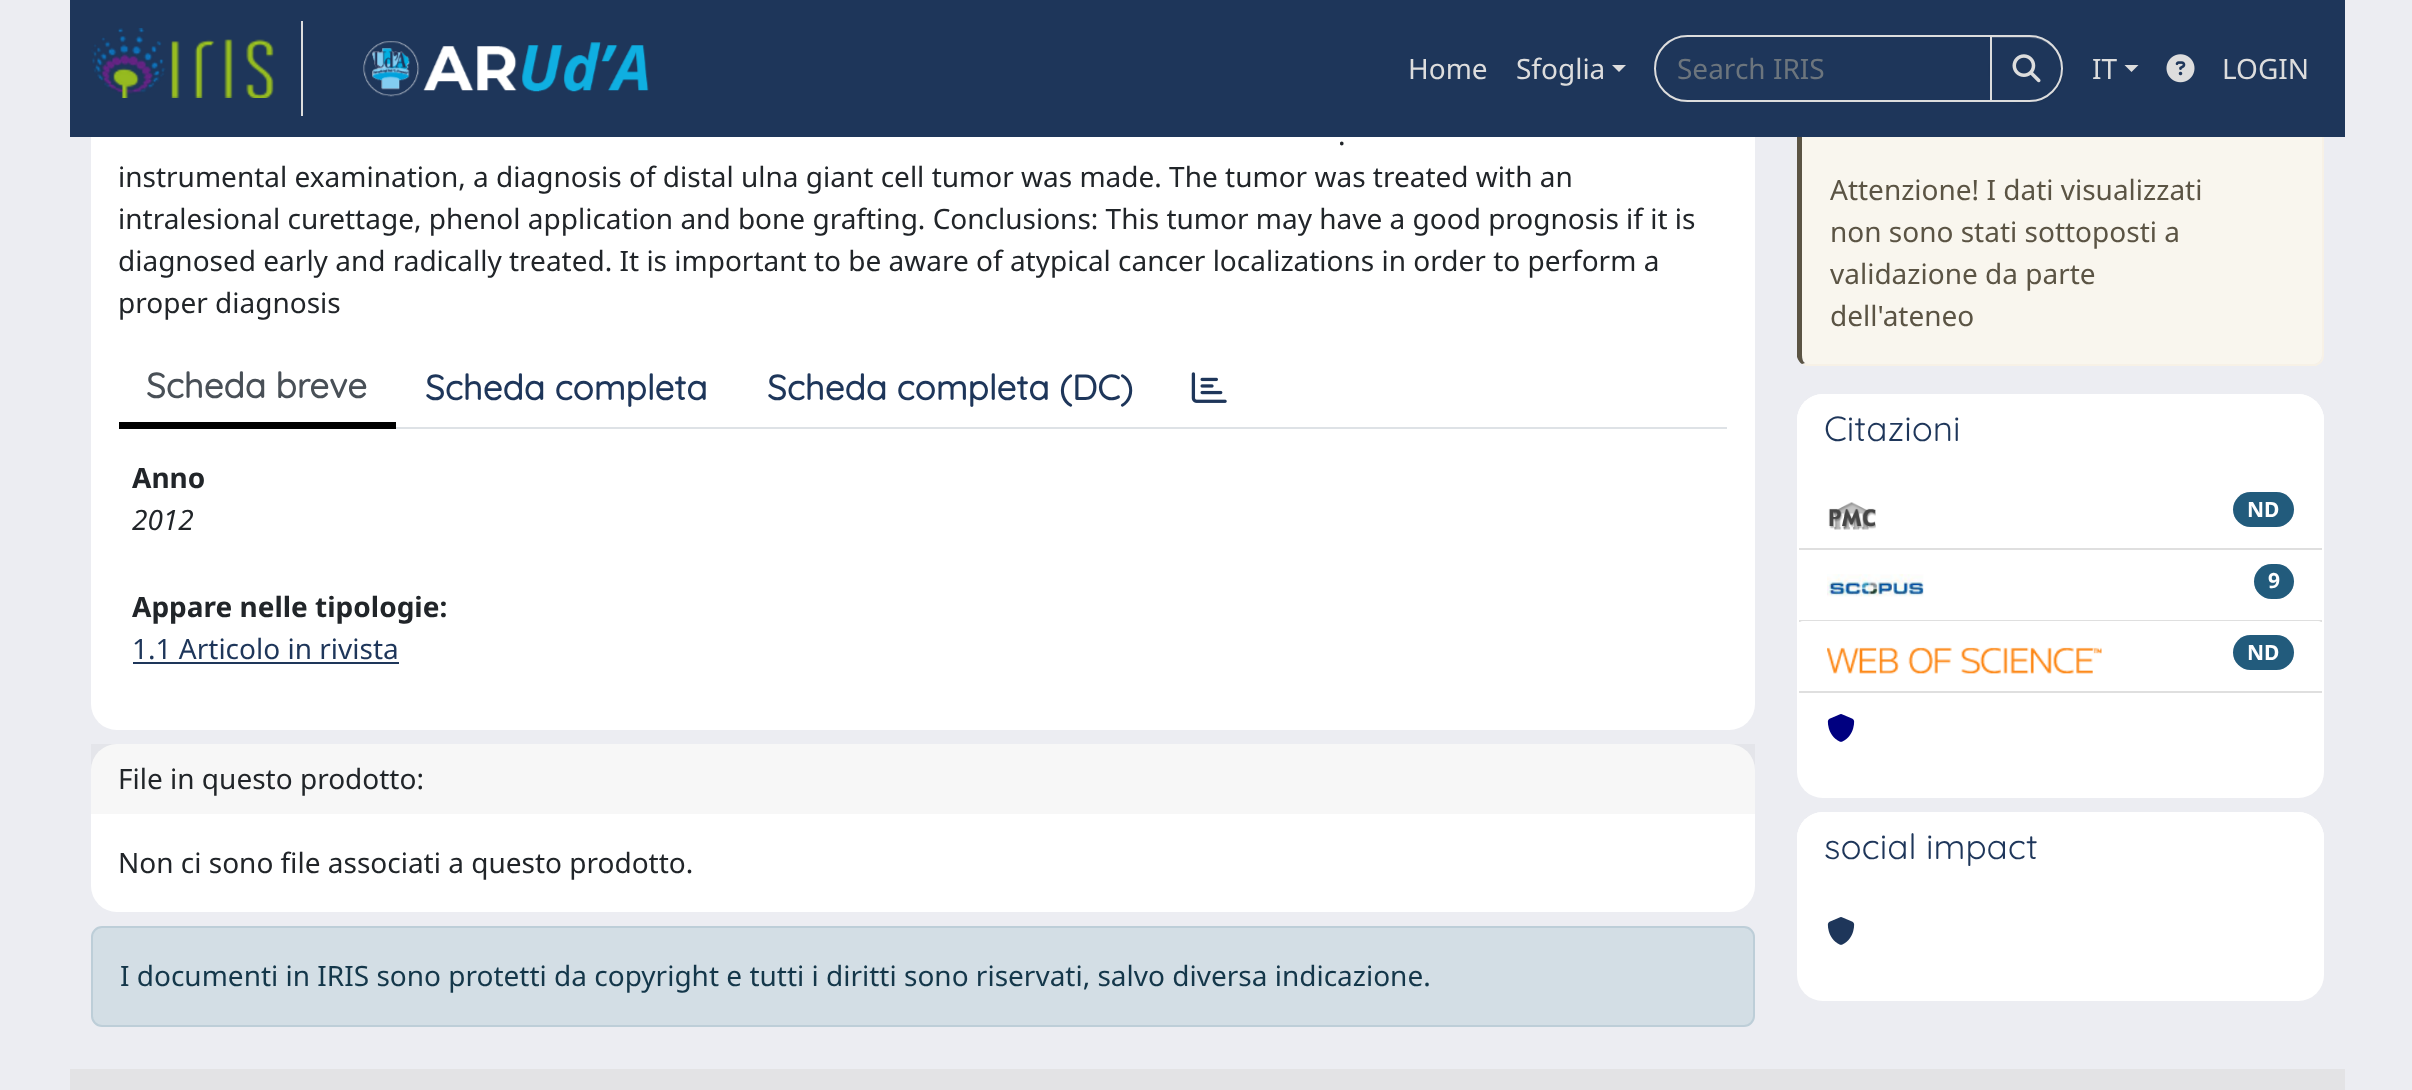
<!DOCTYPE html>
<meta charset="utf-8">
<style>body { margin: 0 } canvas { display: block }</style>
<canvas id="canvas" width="2412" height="1090"></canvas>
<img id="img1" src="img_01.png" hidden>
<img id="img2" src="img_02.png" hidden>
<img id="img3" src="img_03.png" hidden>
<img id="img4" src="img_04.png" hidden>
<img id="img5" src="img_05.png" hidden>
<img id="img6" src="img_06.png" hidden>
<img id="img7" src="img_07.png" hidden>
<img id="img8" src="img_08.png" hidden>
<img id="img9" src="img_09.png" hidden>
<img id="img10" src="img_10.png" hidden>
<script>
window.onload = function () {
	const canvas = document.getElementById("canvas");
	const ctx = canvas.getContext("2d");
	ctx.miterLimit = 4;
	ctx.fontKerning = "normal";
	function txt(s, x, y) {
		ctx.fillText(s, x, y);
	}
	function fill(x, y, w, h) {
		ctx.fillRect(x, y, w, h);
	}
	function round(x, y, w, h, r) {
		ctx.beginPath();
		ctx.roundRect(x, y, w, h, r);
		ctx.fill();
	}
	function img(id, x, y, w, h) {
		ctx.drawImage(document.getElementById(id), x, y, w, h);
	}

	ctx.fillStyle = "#ECEDF2";
	fill(0, 0, 2412, 1090);
	ctx.fillStyle = "#FFFFFF";
	round(91, -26, 1664, 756, 26);
	ctx.fillStyle = "#F9F6EE";
	ctx.beginPath();
	ctx.moveTo(1808, 84);
	ctx.lineTo(2314, 84);
	ctx.bezierCurveTo(2318, 84, 2322, 88, 2322, 93);
	ctx.lineTo(2322, 355);
	ctx.bezierCurveTo(2322, 360, 2318, 364, 2314, 364);
	ctx.lineTo(1808, 364);
	ctx.bezierCurveTo(1805, 364, 1802, 360, 1802, 355);
	ctx.lineTo(1802, 93);
	ctx.bezierCurveTo(1802, 88, 1805, 84, 1808, 84);
	ctx.closePath();
	ctx.fill();
	ctx.fillStyle = "#F7F1E6";
	ctx.beginPath();
	ctx.moveTo(2324, 355);
	ctx.lineTo(2324, 93);
	ctx.bezierCurveTo(2324, 90, 2323, 87, 2321, 85);
	ctx.lineTo(2320, 87);
	ctx.bezierCurveTo(2321, 88, 2322, 91, 2322, 93);
	ctx.lineTo(2322, 355);
	ctx.bezierCurveTo(2322, 357, 2321, 360, 2320, 361);
	ctx.lineTo(2321, 363);
	ctx.bezierCurveTo(2323, 361, 2324, 358, 2324, 355);
	ctx.closePath();
	ctx.fill();
	ctx.beginPath();
	ctx.moveTo(1806, 366);
	ctx.lineTo(1802, 364);
	ctx.lineTo(1805, 363);
	ctx.lineTo(1808, 364);
	ctx.lineTo(2316, 364);
	ctx.bezierCurveTo(2317, 363, 2318, 362, 2320, 361);
	ctx.lineTo(2321, 363);
	ctx.bezierCurveTo(2320, 364, 2318, 365, 2316, 366);
	ctx.closePath();
	ctx.fill();
	ctx.fillStyle = "#5B5444";
	ctx.beginPath();
	ctx.moveTo(1797, 91);
	ctx.bezierCurveTo(1798, 88, 1800, 85, 1802, 84);
	ctx.lineTo(1805, 85);
	ctx.bezierCurveTo(1803, 86, 1802, 89, 1802, 93);
	ctx.lineTo(1802, 355);
	ctx.bezierCurveTo(1802, 359, 1803, 362, 1805, 363);
	ctx.lineTo(1802, 364);
	ctx.bezierCurveTo(1800, 363, 1798, 360, 1797, 357);
	ctx.closePath();
	ctx.fill();
	ctx.fillStyle = "#1E365A";
	fill(70, 0, 2275, 137);
	ctx.fillStyle = "#DDDDDD";
	fill(301, 21, 2, 95);
	img("img1", 91, 28, 183, 70);
	img("img2", 363, 41, 286, 56);
	ctx.beginPath();
	ctx.moveTo(1612, 65);
	ctx.lineTo(1626, 65);
	ctx.lineTo(1619, 72);
	ctx.closePath();
	ctx.fill();
	ctx.beginPath();
	ctx.roundRect(1655, 36, 336, 65, [32.5, 0, 0, 32.5]);
	ctx.strokeStyle = "#DDDDDD";
	ctx.lineWidth = 2;
	ctx.stroke();
	ctx.fillStyle = "rgba(0, 0, 0, 0.07)";
	ctx.filter = "blur(1px)";
	ctx.beginPath();
	ctx.roundRect(1990, 37, 73, 66, 33);
	ctx.fill();
	ctx.filter = "none";
	ctx.fillStyle = "#1E365A";
	ctx.beginPath();
	ctx.roundRect(1990, 35, 73, 67, [0, 33.5, 33.5, 0]);
	ctx.fill();
	ctx.fillStyle = "#405473";
	ctx.beginPath();
	ctx.moveTo(1992, 38);
	ctx.lineTo(2030, 38);
	ctx.bezierCurveTo(2047, 38, 2062, 53, 2062, 69);
	ctx.lineTo(2062, 68);
	ctx.bezierCurveTo(2062, 51, 2048, 37, 2030, 37);
	ctx.lineTo(1992, 37);
	ctx.closePath();
	ctx.fill();
	ctx.beginPath();
	ctx.roundRect(1991, 36, 71, 65, [0, 32.5, 32.5, 0]);
	ctx.stroke();
	img("img3", 2012, 54, 29, 29);
	ctx.fillStyle = "#DDDDDD";
	ctx.beginPath();
	ctx.moveTo(2124.5, 65);
	ctx.lineTo(2138.5, 65);
	ctx.lineTo(2131.5, 72);
	ctx.closePath();
	ctx.fill();
	img("img4", 2166, 54, 29, 29);
	ctx.fillStyle = "#DEE2E6";
	fill(396, 427, 1331, 2);
	ctx.fillStyle = "#000000";
	fill(119, 422, 277, 7);
	img("img5", 1191, 372, 36, 31);
	ctx.fillStyle = "#1E365A";
	fill(133, 662, 266, 2);
	ctx.fillStyle = "#FFFFFF";
	round(91, 744, 1664, 168, 26);
	ctx.fillStyle = "rgba(0, 0, 0, 0.03)";
	fill(91, 744, 1664, 70);
	ctx.fillStyle = "#D3DEE5";
	ctx.beginPath();
	ctx.roundRect(92, 927, 1662, 99, 10);
	ctx.fill();
	ctx.strokeStyle = "#BDCED8";
	ctx.stroke();
	ctx.fillStyle = "#FFFFFF";
	round(1797, 394, 527, 404, 26);
	ctx.beginPath();
	ctx.roundRect(1797, 394, 527, 84, [26, 26, 0, 0]);
	ctx.fill();
	ctx.fillStyle = "#DFDFDF";
	fill(1799, 548, 523, 2);
	img("img6", 1828, 502, 48, 28);
	ctx.fillStyle = "#225B7C";
	round(2233, 492, 61, 35, 17.5);
	ctx.fillStyle = "#DFDFDF";
	fill(1799, 620, 523, 2);
	img("img7", 1827, 574, 97, 23);
	ctx.fillStyle = "#225B7C";
	round(2254, 564, 40, 35, 17.5);
	ctx.fillStyle = "#FFFFFF";
	ctx.beginPath();
	ctx.roundRect(1799, 621, 523, 72, [4, 4, 0, 0]);
	ctx.fill();
	ctx.fillStyle = "#DFDFDF";
	fill(1799, 691, 523, 2);
	img("img8", 1827, 647, 275, 27);
	ctx.fillStyle = "#225B7C";
	round(2233, 635, 61, 35, 17.5);
	img("img9", 1827, 714, 28, 28);
	ctx.fillStyle = "#FFFFFF";
	round(1797, 812, 527, 189, 26);
	ctx.beginPath();
	ctx.roundRect(1797, 812, 527, 84, [26, 26, 0, 0]);
	ctx.fill();
	img("img10", 1827, 917, 28, 28);
	ctx.fillStyle = "#E3E3E5";
	fill(70, 1069, 2275, 21);
	ctx.font = "28px Noto Sans";
	ctx.fillStyle = "#DDDDDD";
	txt("Home", 1408, 79);
	txt("Sfoglia", 1516, 79);
	ctx.fillStyle = "#6C757D";
	txt("Search IRIS", 1677, 79);
	ctx.fillStyle = "#DDDDDD";
	txt("IT", 2092, 79);
	txt("LOGIN", 2222, 79);
	ctx.fillStyle = "#212529";
	txt(".", 1338, 145);
	txt("instrumental examination, a diagnosis of distal ulna giant cell tumor was made. The tumor was treated with an", 118, 187);
	txt("intralesional curettage, phenol application and bone grafting. Conclusions: This tumor may have a good prognosis if it is", 118, 229);
	txt("diagnosed early and radically treated. It is important to be aware of atypical cancer localizations in order to perform a", 118, 271);
	txt("proper diagnosis", 118, 313);
	ctx.font = "bold 35px Quicksand";
	ctx.fillStyle = "#495057";
	txt("Scheda breve", 146, 398);
	ctx.fillStyle = "#1E365A";
	txt("Scheda completa", 425, 400);
	txt("Scheda completa (DC)", 767, 400);
	ctx.font = "bold 28px Noto Sans";
	ctx.fillStyle = "#212529";
	txt("Anno", 132, 488);
	ctx.font = "italic 28px Noto Sans";
	txt("2012", 132, 530);
	ctx.font = "bold 28px Noto Sans";
	txt("Appare nelle tipologie:", 132, 617);
	ctx.font = "28px Noto Sans";
	ctx.fillStyle = "#1E365A";
	txt("1.1 Articolo in rivista", 132, 659);
	ctx.fillStyle = "#212529";
	txt("File in questo prodotto:", 118, 789);
	txt("Non ci sono file associati a questo prodotto.", 118, 873);
	ctx.fillStyle = "#14374A";
	txt("I documenti in IRIS sono protetti da copyright e tutti i diritti sono riservati, salvo diversa indicazione.", 120, 986);
	ctx.fillStyle = "#5B5444";
	txt("Attenzione! I dati visualizzati", 1830, 200);
	txt("non sono stati sottoposti a", 1830, 242);
	txt("validazione da parte", 1830, 284);
	txt("dell'ateneo", 1830, 326);
	ctx.font = "300 35px Quicksand";
	ctx.fillStyle = "#1E365A";
	txt("Citazioni", 1824, 441);
	ctx.font = "bold 21px Noto Sans";
	ctx.fillStyle = "#FFFFFF";
	txt("ND", 2247, 517);
	txt("9", 2268, 588);
	txt("ND", 2247, 660);
	ctx.font = "300 35px Quicksand";
	ctx.fillStyle = "#1E365A";
	txt("social impact", 1824, 859);
};
</script>
